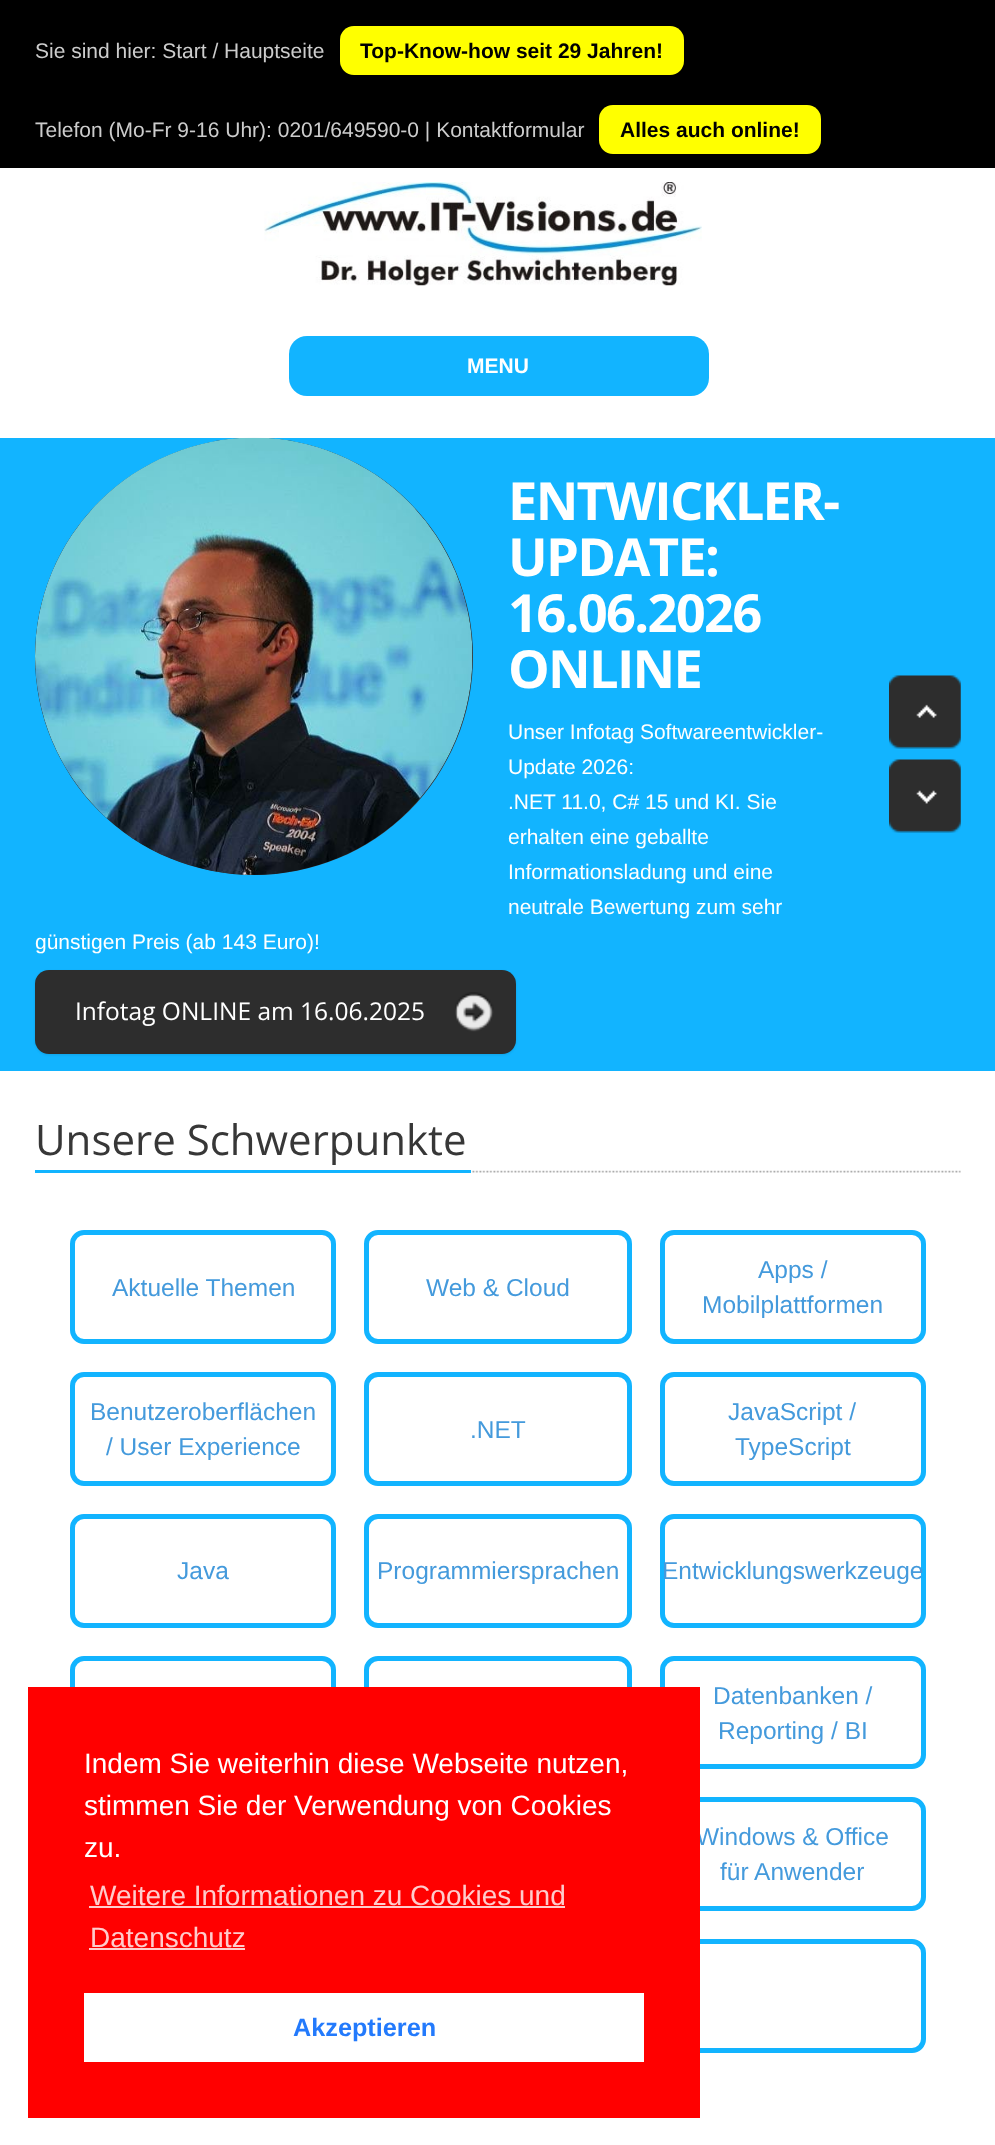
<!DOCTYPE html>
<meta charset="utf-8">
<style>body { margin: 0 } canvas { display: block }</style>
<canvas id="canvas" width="995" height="2145"></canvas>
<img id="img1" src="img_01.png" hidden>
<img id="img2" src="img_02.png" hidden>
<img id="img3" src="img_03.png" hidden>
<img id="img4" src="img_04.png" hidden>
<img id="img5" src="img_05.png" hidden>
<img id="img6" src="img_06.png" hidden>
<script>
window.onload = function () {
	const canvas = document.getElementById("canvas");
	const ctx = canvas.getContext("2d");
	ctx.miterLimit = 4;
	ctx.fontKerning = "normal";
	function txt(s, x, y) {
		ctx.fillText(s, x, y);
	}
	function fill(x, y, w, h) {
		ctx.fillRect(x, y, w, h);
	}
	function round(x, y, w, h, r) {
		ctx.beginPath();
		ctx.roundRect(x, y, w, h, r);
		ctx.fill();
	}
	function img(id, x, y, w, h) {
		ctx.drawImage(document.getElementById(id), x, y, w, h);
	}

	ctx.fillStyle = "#FFFFFF";
	fill(0, 0, 995, 2145);
	ctx.fillStyle = "#000000";
	fill(0, 0, 995, 168);
	ctx.fillStyle = "#FFFF00";
	round(340, 26, 344, 49, 14);
	round(599, 105, 222, 49, 14);
	img("img1", 264, 182, 438, 104);
	ctx.fillStyle = "#12B4FF";
	round(289, 336, 420, 60, 18);
	fill(0, 438, 995, 633);
	ctx.fillStyle = "#333333";
	round(35, 438, 438, 437, 218.5);
	img("img2", 35, 437, 438, 438);
	ctx.fillStyle = "rgba(0, 0, 0, 0.1)";
	ctx.filter = "blur(1px)";
	ctx.beginPath();
	ctx.roundRect(35, 971, 481, 84, 14);
	ctx.fill();
	ctx.filter = "none";
	ctx.fillStyle = "#2D2D2D";
	round(35, 970, 481, 84, 14);
	img("img3", 455, 992, 39, 40);
	img("img4", 889, 675, 72, 74);
	img("img5", 889, 759, 72, 74);
	img("img6", 471, 1170, 490, 3);
	ctx.fillStyle = "#12B4FF";
	fill(35, 1170, 436, 3);
	ctx.beginPath();
	ctx.roundRect(72.5, 1232.5, 261, 109, 11.5);
	ctx.strokeStyle = "#12B4FF";
	ctx.lineWidth = 5;
	ctx.stroke();
	ctx.beginPath();
	ctx.roundRect(366.5, 1232.5, 263, 109, 11.5);
	ctx.stroke();
	ctx.beginPath();
	ctx.roundRect(662.5, 1232.5, 261, 109, 11.5);
	ctx.stroke();
	ctx.beginPath();
	ctx.roundRect(72.5, 1374.5, 261, 109, 11.5);
	ctx.stroke();
	ctx.beginPath();
	ctx.roundRect(366.5, 1374.5, 263, 109, 11.5);
	ctx.stroke();
	ctx.beginPath();
	ctx.roundRect(662.5, 1374.5, 261, 109, 11.5);
	ctx.stroke();
	ctx.beginPath();
	ctx.roundRect(72.5, 1516.5, 261, 109, 11.5);
	ctx.stroke();
	ctx.beginPath();
	ctx.roundRect(366.5, 1516.5, 263, 109, 11.5);
	ctx.stroke();
	ctx.beginPath();
	ctx.roundRect(662.5, 1516.5, 261, 109, 11.5);
	ctx.stroke();
	ctx.beginPath();
	ctx.roundRect(72.5, 1658.5, 261, 108, 11.5);
	ctx.stroke();
	ctx.beginPath();
	ctx.roundRect(366.5, 1658.5, 263, 108, 11.5);
	ctx.stroke();
	ctx.beginPath();
	ctx.roundRect(662.5, 1658.5, 261, 108, 11.5);
	ctx.stroke();
	ctx.beginPath();
	ctx.roundRect(662.5, 1799.5, 261, 109, 11.5);
	ctx.stroke();
	ctx.beginPath();
	ctx.roundRect(72.5, 1941.5, 851, 109, 11.5);
	ctx.stroke();
	ctx.font = "21px Liberation Sans";
	ctx.fillStyle = "#CCCCCC";
	txt("Sie sind hier: Start / Hauptseite", 35, 58);
	ctx.font = "bold 21px Liberation Sans";
	ctx.fillStyle = "#000000";
	txt("Top-Know-how seit 29 Jahren!", 360, 58);
	ctx.font = "21px Liberation Sans";
	ctx.fillStyle = "#CCCCCC";
	txt("Telefon (Mo-Fr 9-16 Uhr): 0201/649590-0 | Kontaktformular", 35, 137);
	ctx.font = "bold 21px Liberation Sans";
	ctx.fillStyle = "#000000";
	txt("Alles auch online!", 620, 137);
	ctx.fillStyle = "#FFFFFF";
	txt("MENU", 467, 373);
	ctx.letterSpacing = "-1.75px";
	ctx.font = "bold 52.5px Open Sans";
	txt("ENTWICKLER-", 508, 520);
	txt("UPDATE:", 508, 576);
	txt("16.06.2026", 508, 632);
	txt("ONLINE", 508, 688);
	ctx.letterSpacing = "0px";
	ctx.font = "21px Liberation Sans";
	txt("Unser Infotag Softwareentwickler-", 508, 739);
	txt("Update 2026:", 508, 774);
	txt(".NET 11.0, C# 15 und KI. Sie", 508, 809);
	txt("erhalten eine geballte", 508, 844);
	txt("Informationsladung und eine", 508, 879);
	txt("neutrale Bewertung zum sehr", 508, 914);
	txt("günstigen Preis (ab 143 Euro)!", 35, 949);
	ctx.font = "24.5px Open Sans";
	txt("Infotag ONLINE am 16.06.2025", 75, 1020);
	ctx.font = "42px Open Sans";
	ctx.fillStyle = "#373737";
	txt("Unsere Schwerpunkte", 35, 1155);
	ctx.font = "24.5px Liberation Sans";
	ctx.fillStyle = "#449ADC";
	txt("Aktuelle Themen", 112, 1296);
	txt("Web & Cloud", 426, 1296);
	txt("Apps /", 758, 1278);
	txt("Mobilplattformen", 702, 1313);
	txt("Benutzeroberflächen", 90, 1420);
	txt("/ User Experience", 106, 1455);
	txt(".NET", 470, 1438);
	txt("JavaScript /", 728, 1420);
	txt("TypeScript", 735, 1455);
	txt("Java", 177, 1579);
	txt("Programmiersprachen", 377, 1579);
	txt("Entwicklungswerkzeuge", 662, 1579);
	txt("Datenbanken /", 713, 1704);
	txt("Reporting / BI", 718, 1739);
	txt("Windows & Office", 696, 1845);
	txt("für Anwender", 720, 1880);
	ctx.fillStyle = "#FF0000";
	fill(28, 1687, 672, 431);
	ctx.font = "28px Liberation Sans";
	ctx.fillStyle = "#FFFFFF";
	txt("Indem Sie weiterhin diese Webseite nutzen,", 84, 1773);
	txt("stimmen Sie der Verwendung von Cookies", 84, 1815);
	txt("zu.", 84, 1857);
	ctx.fillStyle = "#FFCCCC";
	txt("Weitere Informationen zu Cookies und", 90, 1905);
	fill(89, 1906, 476, 2);
	txt("Datenschutz", 90, 1947);
	fill(89, 1948, 156, 2);
	ctx.fillStyle = "#FFFFFF";
	fill(84, 1993, 560, 69);
	ctx.font = "bold 25.25px Liberation Sans";
	ctx.fillStyle = "#237AFC";
	txt("Akzeptieren", 293, 2036);
};
</script>
